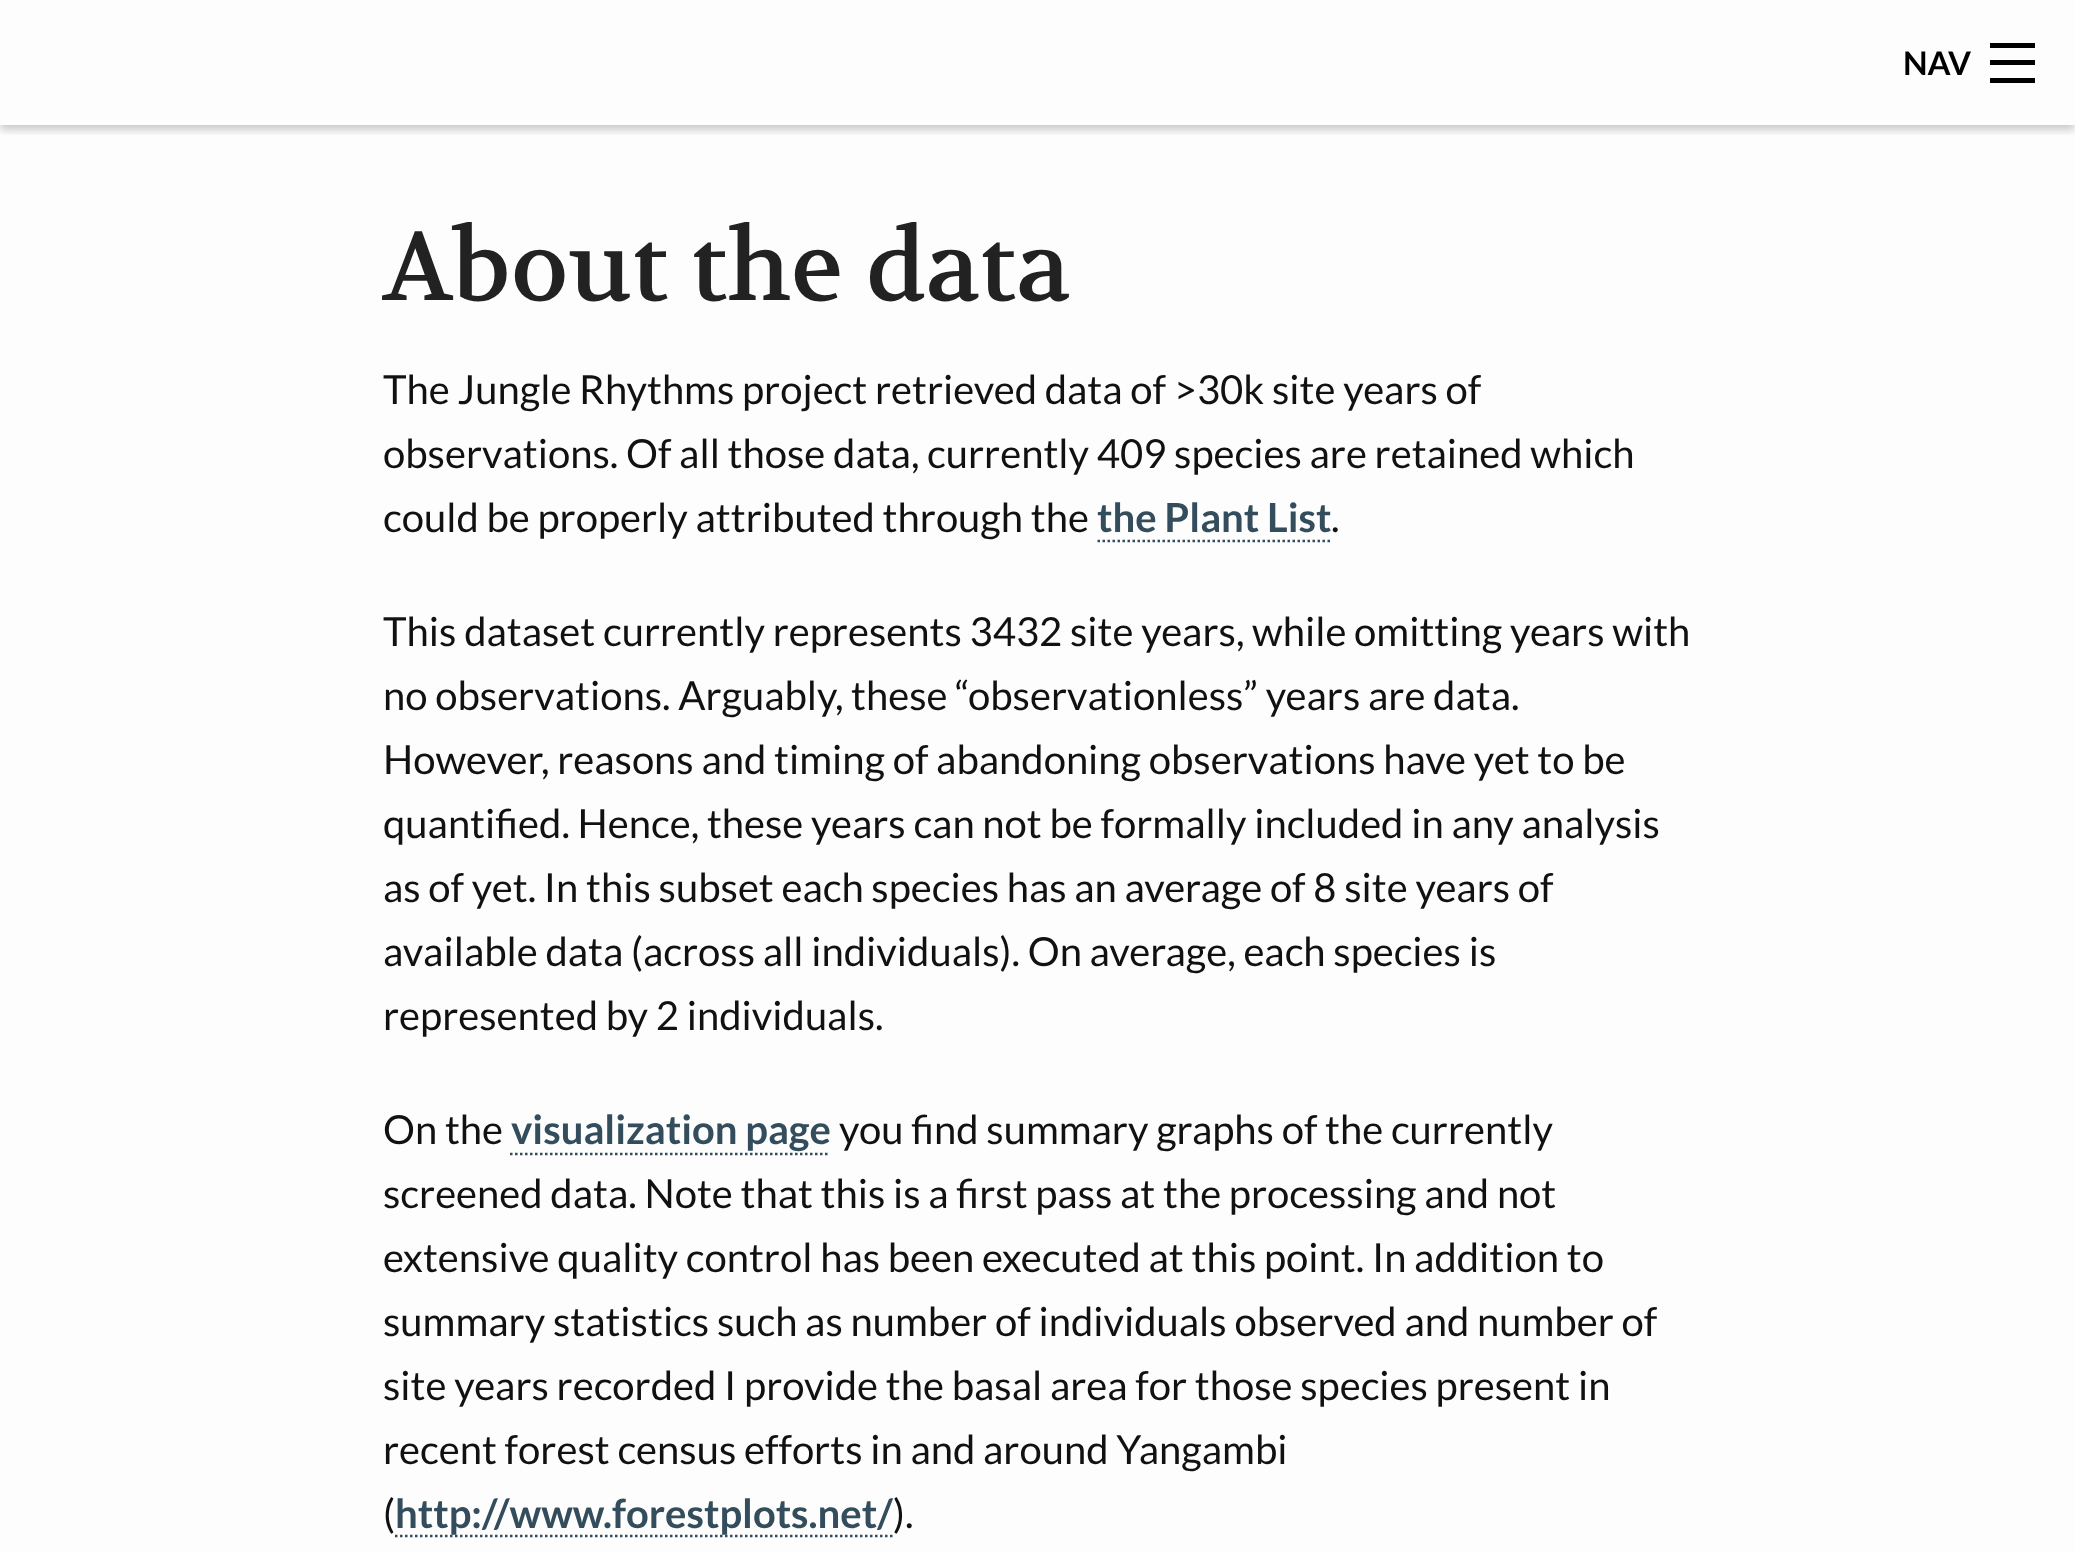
<!DOCTYPE html>
<meta charset="utf-8">
<style>body { margin: 0 } canvas { display: block }</style>
<canvas id="canvas" width="2075" height="1552"></canvas>
<script>
window.onload = function () {
	const canvas = document.getElementById("canvas");
	const ctx = canvas.getContext("2d");
	ctx.miterLimit = 4;
	ctx.fontKerning = "normal";
	function txt(s, x, y) {
		ctx.fillText(s, x, y);
	}
	function fill(x, y, w, h) {
		ctx.fillRect(x, y, w, h);
	}

	ctx.fillStyle = "#FDFDFD";
	fill(0, 0, 2075, 1552);
	ctx.save();
	ctx.beginPath();
	ctx.rect(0, 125, 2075, 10);
	ctx.clip();
	ctx.fillStyle = "rgba(0, 0, 0, 0.2)";
	ctx.filter = "blur(4px)";
	ctx.beginPath();
	ctx.rect(0, 5, 2075, 125);
	ctx.fill();
	ctx.filter = "none";
	ctx.restore();
	ctx.fillStyle = "#000000";
	fill(1990, 78, 45, 5);
	fill(1990, 60, 45, 5);
	fill(1990, 43, 45, 5);
	ctx.beginPath();
	ctx.moveTo(1097.5, 541);
	ctx.lineTo(1332.5, 541);
	ctx.strokeStyle = "#334D5C";
	ctx.lineWidth = 2.5;
	ctx.setLineDash([2.5, 2.5]);
	ctx.stroke();
	ctx.beginPath();
	ctx.moveTo(510, 1154);
	ctx.lineTo(830, 1154);
	ctx.stroke();
	ctx.beginPath();
	ctx.moveTo(395, 1536);
	ctx.lineTo(892.5, 1536);
	ctx.stroke();
	ctx.font = "bold 32.5px Lato";
	txt("NAV", 1903, 75);
	ctx.font = "97.5px Volkhov";
	ctx.fillStyle = "#222222";
	txt("About the data", 383, 300);
	ctx.font = "40px Lato";
	ctx.fillStyle = "#111111";
	txt("The Jungle Rhythms project retrieved data of >30k site years of", 383, 404);
	txt("observations. Of all those data, currently 409 species are retained which", 383, 468);
	txt("could be properly attributed through the", 383, 532);
	ctx.font = "bold 40px Lato";
	ctx.fillStyle = "#334D5C";
	txt("the Plant List", 1097, 532);
	ctx.font = "40px Lato";
	ctx.fillStyle = "#111111";
	txt(".", 1331, 532);
	txt("This dataset currently represents 3432 site years, while omitting years with", 383, 646);
	txt("no observations. Arguably, these “observationless” years are data.", 383, 710);
	txt("However, reasons and timing of abandoning observations have yet to be", 383, 774);
	txt("quantified. Hence, these years can not be formally included in any analysis", 383, 838);
	txt("as of yet. In this subset each species has an average of 8 site years of", 383, 902);
	txt("available data (across all individuals). On average, each species is", 383, 966);
	txt("represented by 2 individuals.", 383, 1030);
	txt("On the", 383, 1144);
	ctx.font = "bold 40px Lato";
	ctx.fillStyle = "#334D5C";
	txt("visualization page", 511, 1144);
	ctx.font = "40px Lato";
	ctx.fillStyle = "#111111";
	txt("you find summary graphs of the currently", 839, 1144);
	txt("screened data. Note that this is a first pass at the processing and not", 383, 1208);
	txt("extensive quality control has been executed at this point. In addition to", 383, 1272);
	txt("summary statistics such as number of individuals observed and number of", 383, 1336);
	txt("site years recorded I provide the basal area for those species present in", 383, 1400);
	txt("recent forest census efforts in and around Yangambi", 383, 1464);
	txt("(", 383, 1528);
	ctx.font = "bold 40px Lato";
	ctx.fillStyle = "#334D5C";
	txt("http://www.forestplots.net/", 395, 1528);
	ctx.font = "40px Lato";
	ctx.fillStyle = "#111111";
	txt(").", 893, 1528);
};
</script>
